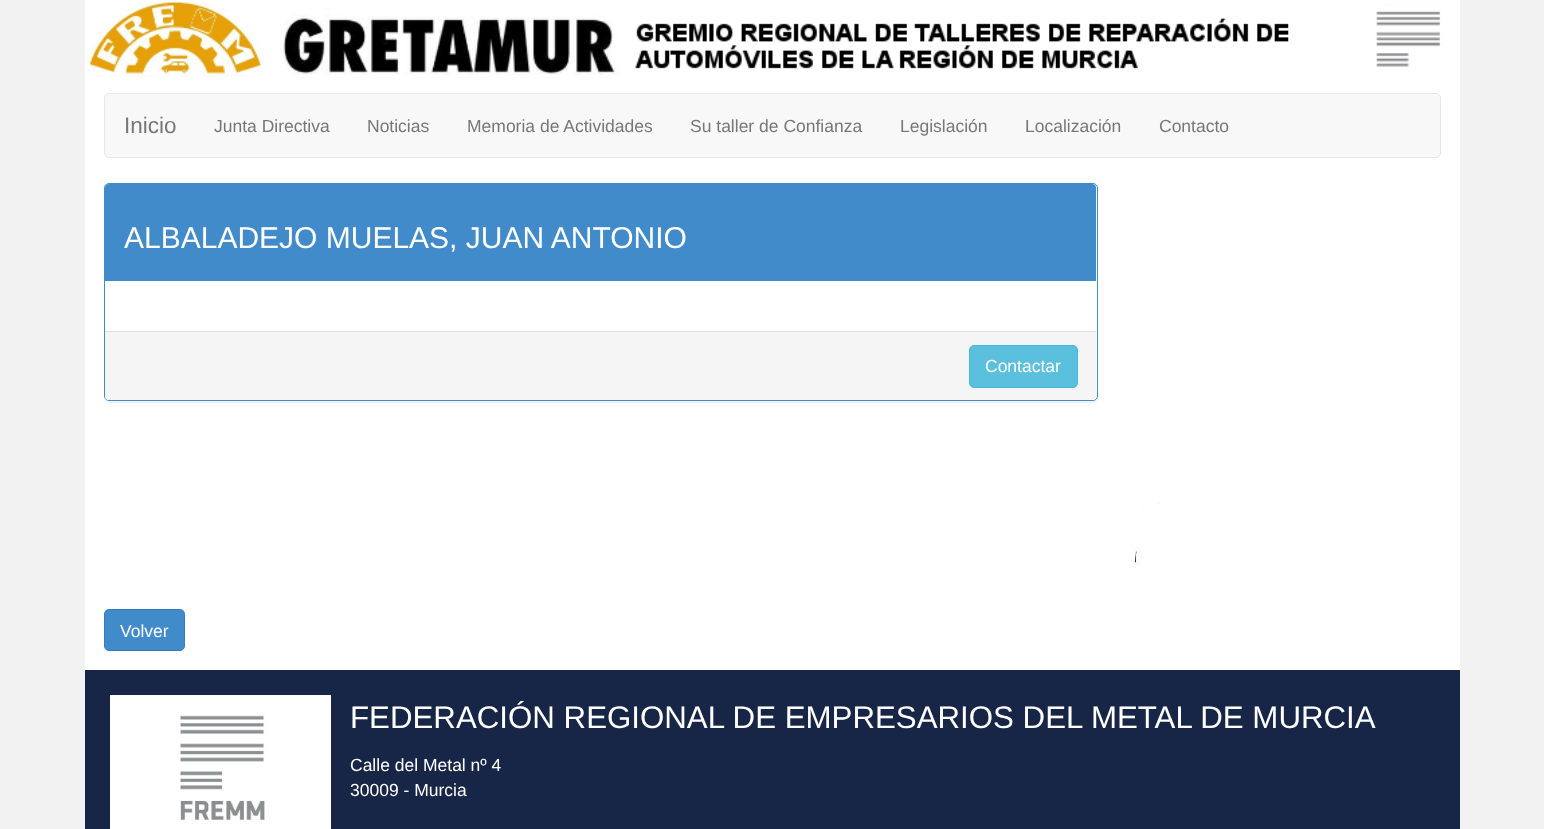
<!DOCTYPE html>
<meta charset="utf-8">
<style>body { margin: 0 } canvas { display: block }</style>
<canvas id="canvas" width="1544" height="829"></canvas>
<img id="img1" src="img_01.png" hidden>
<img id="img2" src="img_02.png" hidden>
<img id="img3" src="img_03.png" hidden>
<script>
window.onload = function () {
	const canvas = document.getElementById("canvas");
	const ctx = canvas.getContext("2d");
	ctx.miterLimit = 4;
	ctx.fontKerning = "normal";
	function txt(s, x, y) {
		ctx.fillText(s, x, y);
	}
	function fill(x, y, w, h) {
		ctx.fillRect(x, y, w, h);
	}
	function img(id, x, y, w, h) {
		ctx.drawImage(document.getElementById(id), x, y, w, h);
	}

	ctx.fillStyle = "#F2F2F2";
	fill(0, 0, 1544, 829);
	ctx.fillStyle = "#FFFFFF";
	fill(85, 0, 1375, 670);
	img("img1", 86, 0, 1355, 77);
	ctx.fillStyle = "#F8F8F8";
	ctx.beginPath();
	ctx.roundRect(104.5, 93.5, 1336, 64, 4.5);
	ctx.fill();
	ctx.strokeStyle = "#E7E7E7";
	ctx.stroke();
	ctx.fillStyle = "rgba(0, 0, 0, 0.05)";
	ctx.filter = "blur(0.5px)";
	ctx.beginPath();
	ctx.roundRect(104, 184, 994, 219, 5);
	ctx.fill();
	ctx.filter = "none";
	ctx.fillStyle = "#FFFFFF";
	ctx.beginPath();
	ctx.roundRect(104.5, 183.5, 993, 217, 4.5);
	ctx.fill();
	ctx.strokeStyle = "#428BCA";
	ctx.stroke();
	ctx.fillStyle = "#428BCA";
	ctx.beginPath();
	ctx.roundRect(105, 184, 991, 97, [4, 4, 0, 0]);
	ctx.fill();
	ctx.fillStyle = "#F5F5F5";
	ctx.beginPath();
	ctx.roundRect(105, 331, 991, 69, [0, 0, 4, 4]);
	ctx.fill();
	ctx.fillStyle = "#DDDDDD";
	fill(105, 331, 991, 1);
	ctx.fillStyle = "#5BC0DE";
	ctx.beginPath();
	ctx.roundRect(969.5, 345.5, 108, 42, 4.5);
	ctx.fill();
	ctx.strokeStyle = "#46B8DA";
	ctx.stroke();
	img("img2", 1135, 501, 25, 66);
	ctx.fillStyle = "#428BCA";
	ctx.beginPath();
	ctx.roundRect(104.5, 609.5, 80, 41, 4.5);
	ctx.fill();
	ctx.strokeStyle = "#357EBD";
	ctx.stroke();
	ctx.fillStyle = "#172546";
	fill(85, 670, 1375, 159);
	ctx.fillStyle = "#FFFFFF";
	fill(110, 695, 221, 134);
	img("img3", 180, 715, 85, 105);
	ctx.font = "22.5px Liberation Sans";
	ctx.fillStyle = "#777777";
	txt("Inicio", 124, 133);
	ctx.font = "17.5px Liberation Sans";
	txt("Junta Directiva", 214, 132);
	txt("Noticias", 367, 132);
	txt("Memoria de Actividades", 467, 132);
	txt("Su taller de Confianza", 690, 132);
	txt("Legislación", 900, 132);
	txt("Localización", 1025, 132);
	txt("Contacto", 1159, 132);
	ctx.font = "30px Liberation Sans";
	ctx.fillStyle = "#FFFFFF";
	txt("ALBALADEJO MUELAS, JUAN ANTONIO", 124, 248);
	ctx.font = "17.5px Liberation Sans";
	txt("Contactar", 985, 372);
	txt("Volver", 120, 637);
	ctx.font = "31.25px Liberation Sans";
	txt("FEDERACIÓN REGIONAL DE EMPRESARIOS DEL METAL DE MURCIA", 350, 728);
	ctx.font = "17.5px Liberation Sans";
	txt("Calle del Metal nº 4", 350, 771);
	txt("30009 - Murcia", 350, 796);
};
</script>
